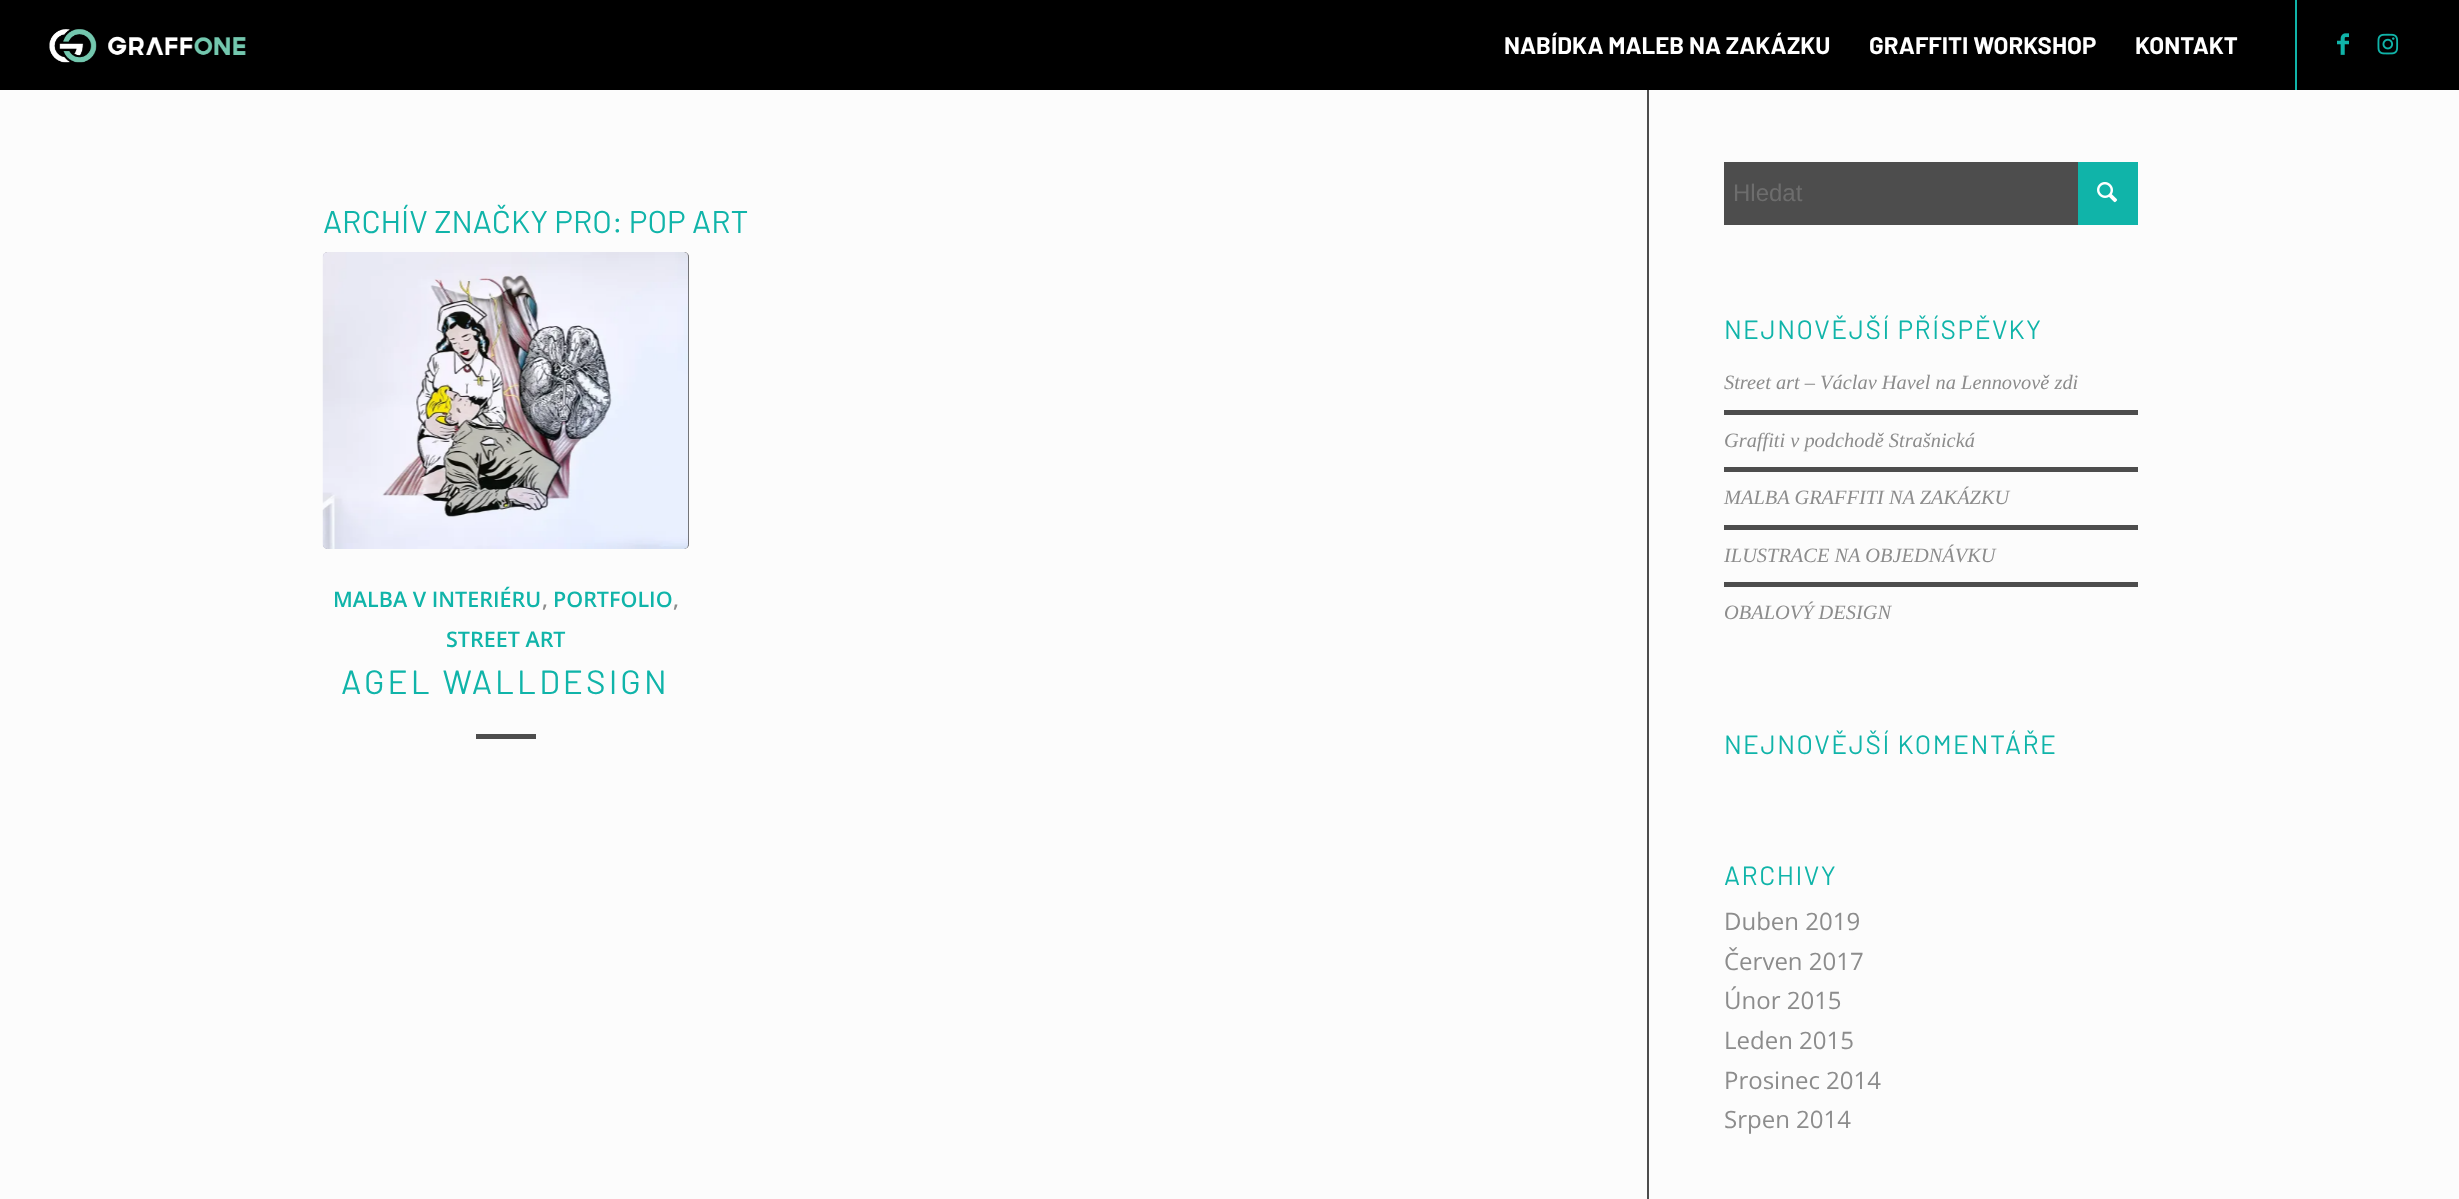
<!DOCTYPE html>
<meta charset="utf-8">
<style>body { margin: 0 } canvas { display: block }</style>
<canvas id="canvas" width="2459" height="1199"></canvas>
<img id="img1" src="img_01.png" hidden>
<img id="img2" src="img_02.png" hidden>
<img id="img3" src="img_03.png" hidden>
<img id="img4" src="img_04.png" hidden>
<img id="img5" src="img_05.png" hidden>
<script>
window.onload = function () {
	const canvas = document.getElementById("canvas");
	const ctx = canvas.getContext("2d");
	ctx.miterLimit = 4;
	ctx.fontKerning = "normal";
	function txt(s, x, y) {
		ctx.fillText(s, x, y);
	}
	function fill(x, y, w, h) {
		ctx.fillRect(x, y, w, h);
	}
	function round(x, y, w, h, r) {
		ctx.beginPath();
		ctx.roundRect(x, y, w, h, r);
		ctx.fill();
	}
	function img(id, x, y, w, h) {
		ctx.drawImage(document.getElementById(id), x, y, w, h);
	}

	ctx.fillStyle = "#FCFCFC";
	fill(0, 0, 2459, 1199);
	ctx.fillStyle = "#4D4D4D";
	fill(1647, 87, 2, 1112);
	ctx.fillStyle = "#000000";
	fill(0, 0, 2459, 90);
	img("img1", 49, 29, 197, 34);
	ctx.fillStyle = "#10B4A9";
	fill(2295, 0, 2, 90);
	img("img2", 2337, 33, 12, 22);
	img("img3", 2377, 33, 22, 22);
	ctx.fillStyle = "#4D4D4D";
	round(323, 252, 366, 297, 5);
	img("img4", 322, 252, 367, 297);
	fill(476, 734, 60, 5);
	fill(1724, 162, 354, 63);
	ctx.fillStyle = "#10B4A9";
	fill(2078, 162, 60, 63);
	img("img5", 2097, 182, 21, 21);
	ctx.fillStyle = "#4D4D4D";
	fill(1724, 410, 414, 5);
	fill(1724, 467, 414, 5);
	fill(1724, 525, 414, 5);
	fill(1724, 582, 414, 5);
	ctx.font = "bold 24px Barlow";
	ctx.fillStyle = "#FFFFFF";
	txt("NABÍDKA MALEB NA ZAKÁZKU", 1504, 54);
	txt("GRAFFITI WORKSHOP", 1869, 54);
	txt("KONTAKT", 2135, 54);
	ctx.font = "31.5px Barlow";
	ctx.fillStyle = "#10B4A9";
	txt("ARCHÍV ZNAČKY PRO: POP ART", 323, 233);
	ctx.font = "600 21.5px Open Sans";
	txt("MALBA V INTERIÉRU", 333, 607);
	ctx.fillStyle = "#8C8C8C";
	txt(",", 542, 607);
	ctx.fillStyle = "#10B4A9";
	txt("PORTFOLIO", 553, 607);
	ctx.fillStyle = "#8C8C8C";
	txt(",", 673, 607);
	ctx.fillStyle = "#10B4A9";
	txt("STREET ART", 446, 647);
	ctx.letterSpacing = "3px";
	ctx.font = "33.5px Barlow";
	txt("AGEL WALLDESIGN", 341, 694);
	ctx.letterSpacing = "0px";
	ctx.font = "24px Liberation Sans";
	ctx.fillStyle = "#6D6D6D";
	txt("Hledat", 1733, 201);
	ctx.letterSpacing = "1.5px";
	ctx.font = "26.4px Barlow";
	ctx.fillStyle = "#10B4A9";
	txt("NEJNOVĚJŠÍ PŘÍSPĚVKY", 1724, 339);
	ctx.letterSpacing = "0px";
	ctx.font = "italic 20.4px Liberation Serif";
	ctx.fillStyle = "#8C8C8C";
	txt("Street art – Václav Havel na Lennovově zdi", 1724, 389);
	txt("Graffiti v podchodě Strašnická", 1724, 447);
	txt("MALBA GRAFFITI NA ZAKÁZKU", 1724, 504);
	txt("ILUSTRACE NA OBJEDNÁVKU", 1724, 562);
	txt("OBALOVÝ DESIGN", 1724, 619);
	ctx.letterSpacing = "1.5px";
	ctx.font = "26.4px Barlow";
	ctx.fillStyle = "#10B4A9";
	txt("NEJNOVĚJŠÍ KOMENTÁŘE", 1724, 754);
	txt("ARCHIVY", 1724, 885);
	ctx.letterSpacing = "0px";
	ctx.font = "24px Open Sans";
	ctx.fillStyle = "#8C8C8C";
	txt("Duben 2019", 1724, 930);
	txt("Červen 2017", 1724, 970);
	txt("Únor 2015", 1724, 1009);
	txt("Leden 2015", 1724, 1049);
	txt("Prosinec 2014", 1724, 1089);
	txt("Srpen 2014", 1724, 1128);
};
</script>
